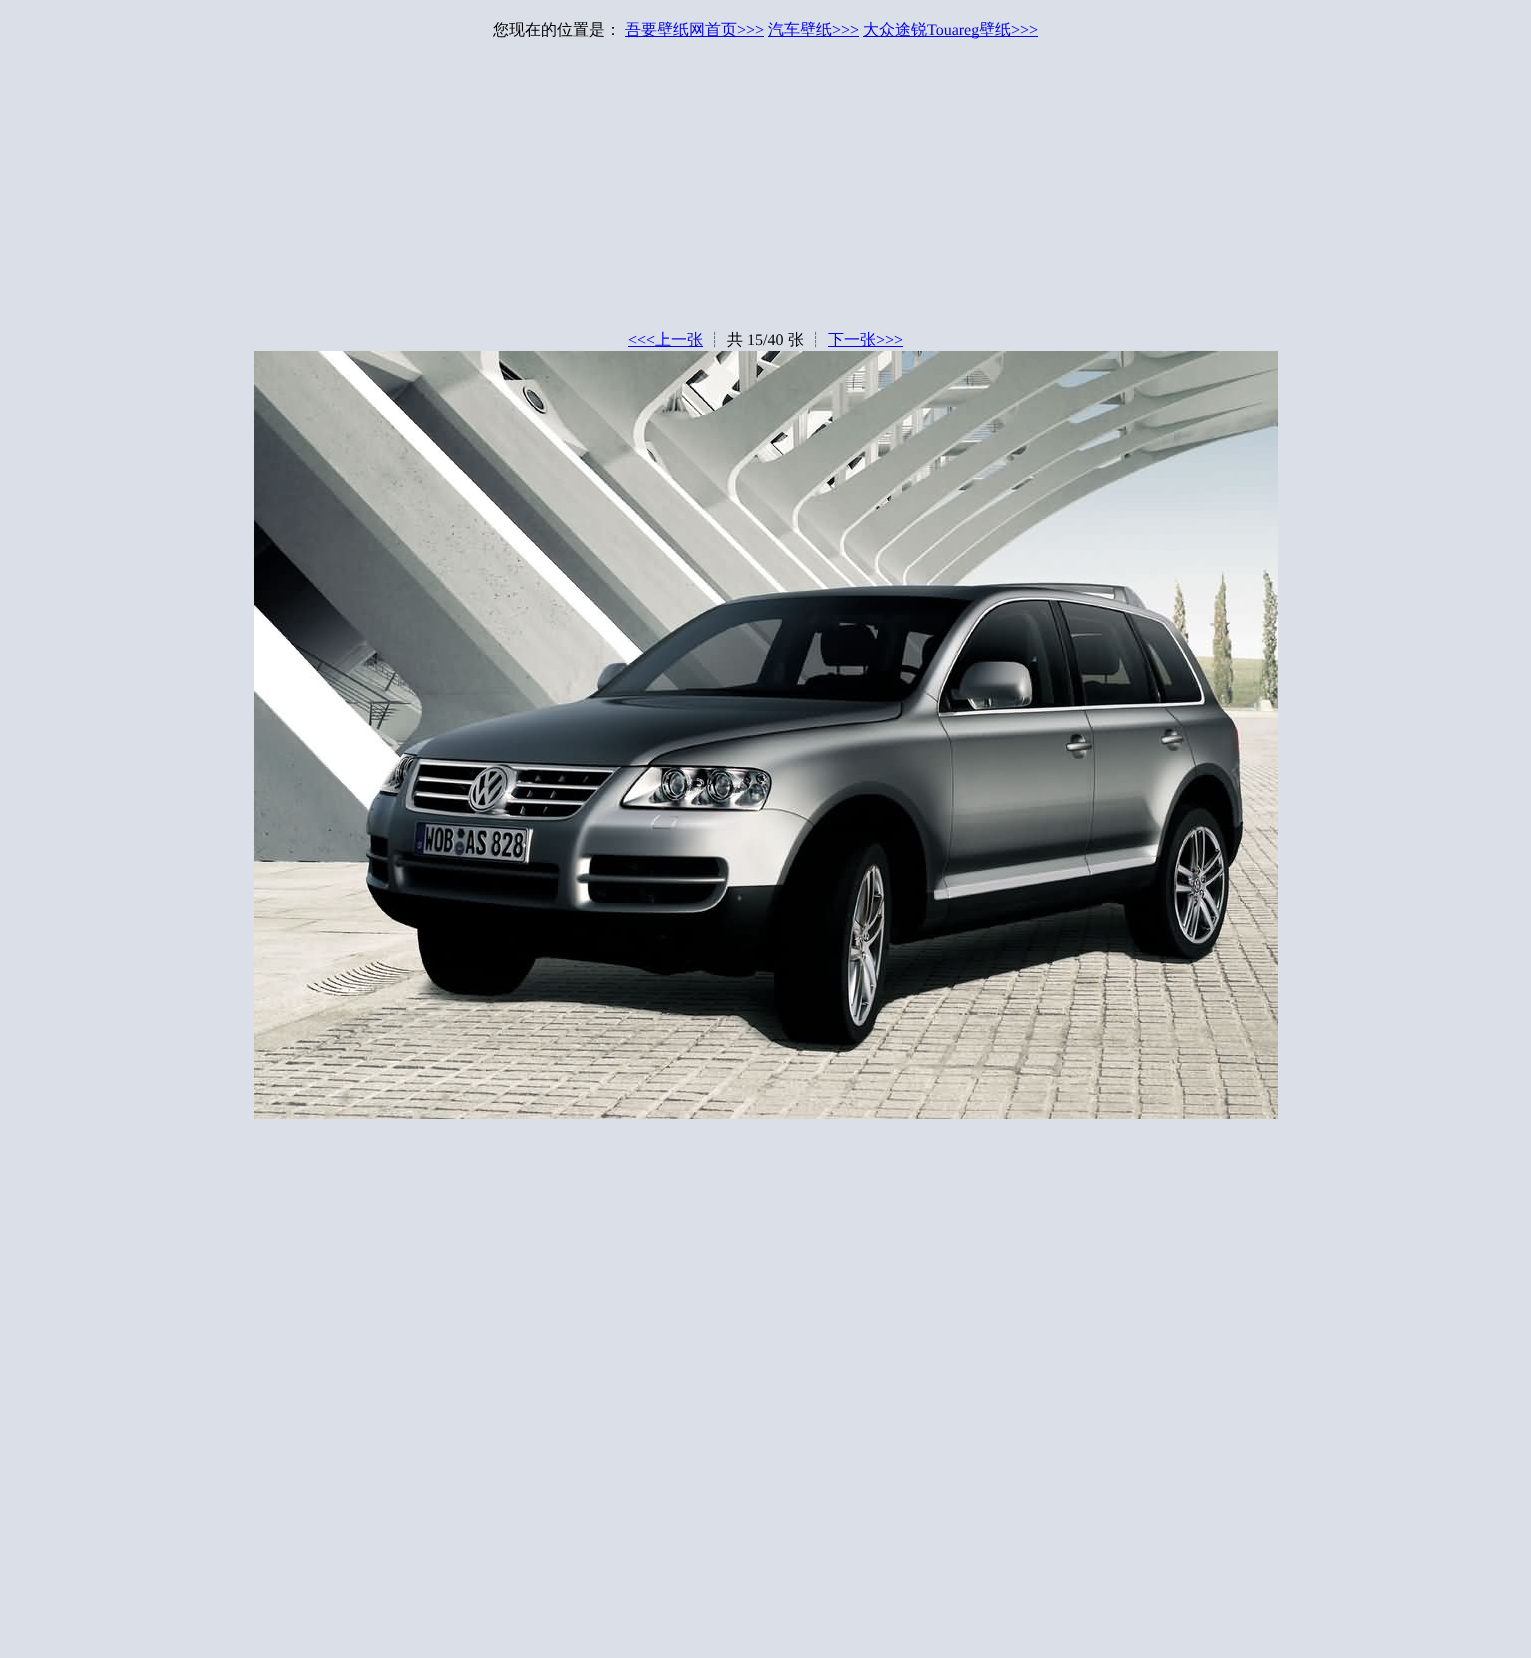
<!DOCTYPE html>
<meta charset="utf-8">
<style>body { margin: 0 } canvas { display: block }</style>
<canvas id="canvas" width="1531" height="1658"></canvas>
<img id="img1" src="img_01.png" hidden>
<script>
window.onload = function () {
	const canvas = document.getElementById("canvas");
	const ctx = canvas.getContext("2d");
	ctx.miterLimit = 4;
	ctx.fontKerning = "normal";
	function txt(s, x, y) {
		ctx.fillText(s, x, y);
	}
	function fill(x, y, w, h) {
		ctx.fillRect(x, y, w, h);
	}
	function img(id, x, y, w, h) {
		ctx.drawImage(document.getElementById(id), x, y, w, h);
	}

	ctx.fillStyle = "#DBDFE8";
	fill(0, 0, 1531, 1658);
	ctx.fillStyle = "#0000EE";
	fill(625, 36, 139, 1);
	fill(768, 36, 91, 1);
	fill(863, 36, 175, 1);
	fill(628, 346, 75, 1);
	fill(828, 346, 75, 1);
	img("img1", 254, 351, 1024, 768);
	ctx.font = "500 16px WenQuanYi Zen Hei";
	ctx.fillStyle = "#000000";
	txt("您现在的位置是：", 493, 35);
	ctx.fillStyle = "#0000EE";
	txt("吾要壁纸网首页", 625, 35);
	ctx.font = "16px Liberation Serif";
	txt(">>>", 737, 35);
	ctx.font = "500 16px WenQuanYi Zen Hei";
	txt("汽车壁纸", 768, 35);
	ctx.font = "16px Liberation Serif";
	txt(">>>", 832, 35);
	ctx.font = "500 16px WenQuanYi Zen Hei";
	txt("大众途锐", 863, 35);
	ctx.font = "16px Liberation Serif";
	txt("Touareg", 927, 35);
	ctx.font = "500 16px WenQuanYi Zen Hei";
	txt("壁纸", 979, 35);
	ctx.font = "16px Liberation Serif";
	txt(">>>", 1011, 35);
	txt("<<<", 628, 345);
	ctx.font = "500 16px WenQuanYi Zen Hei";
	txt("上一张", 655, 345);
	ctx.fillStyle = "#000000";
	txt("┊", 707, 345);
	txt("共", 727, 345);
	ctx.font = "16px Liberation Serif";
	txt("15/40", 747, 345);
	ctx.font = "500 16px WenQuanYi Zen Hei";
	txt("张", 788, 345);
	txt("┊", 808, 345);
	ctx.fillStyle = "#0000EE";
	txt("下一张", 828, 345);
	ctx.font = "16px Liberation Serif";
	txt(">>>", 876, 345);
};
</script>
